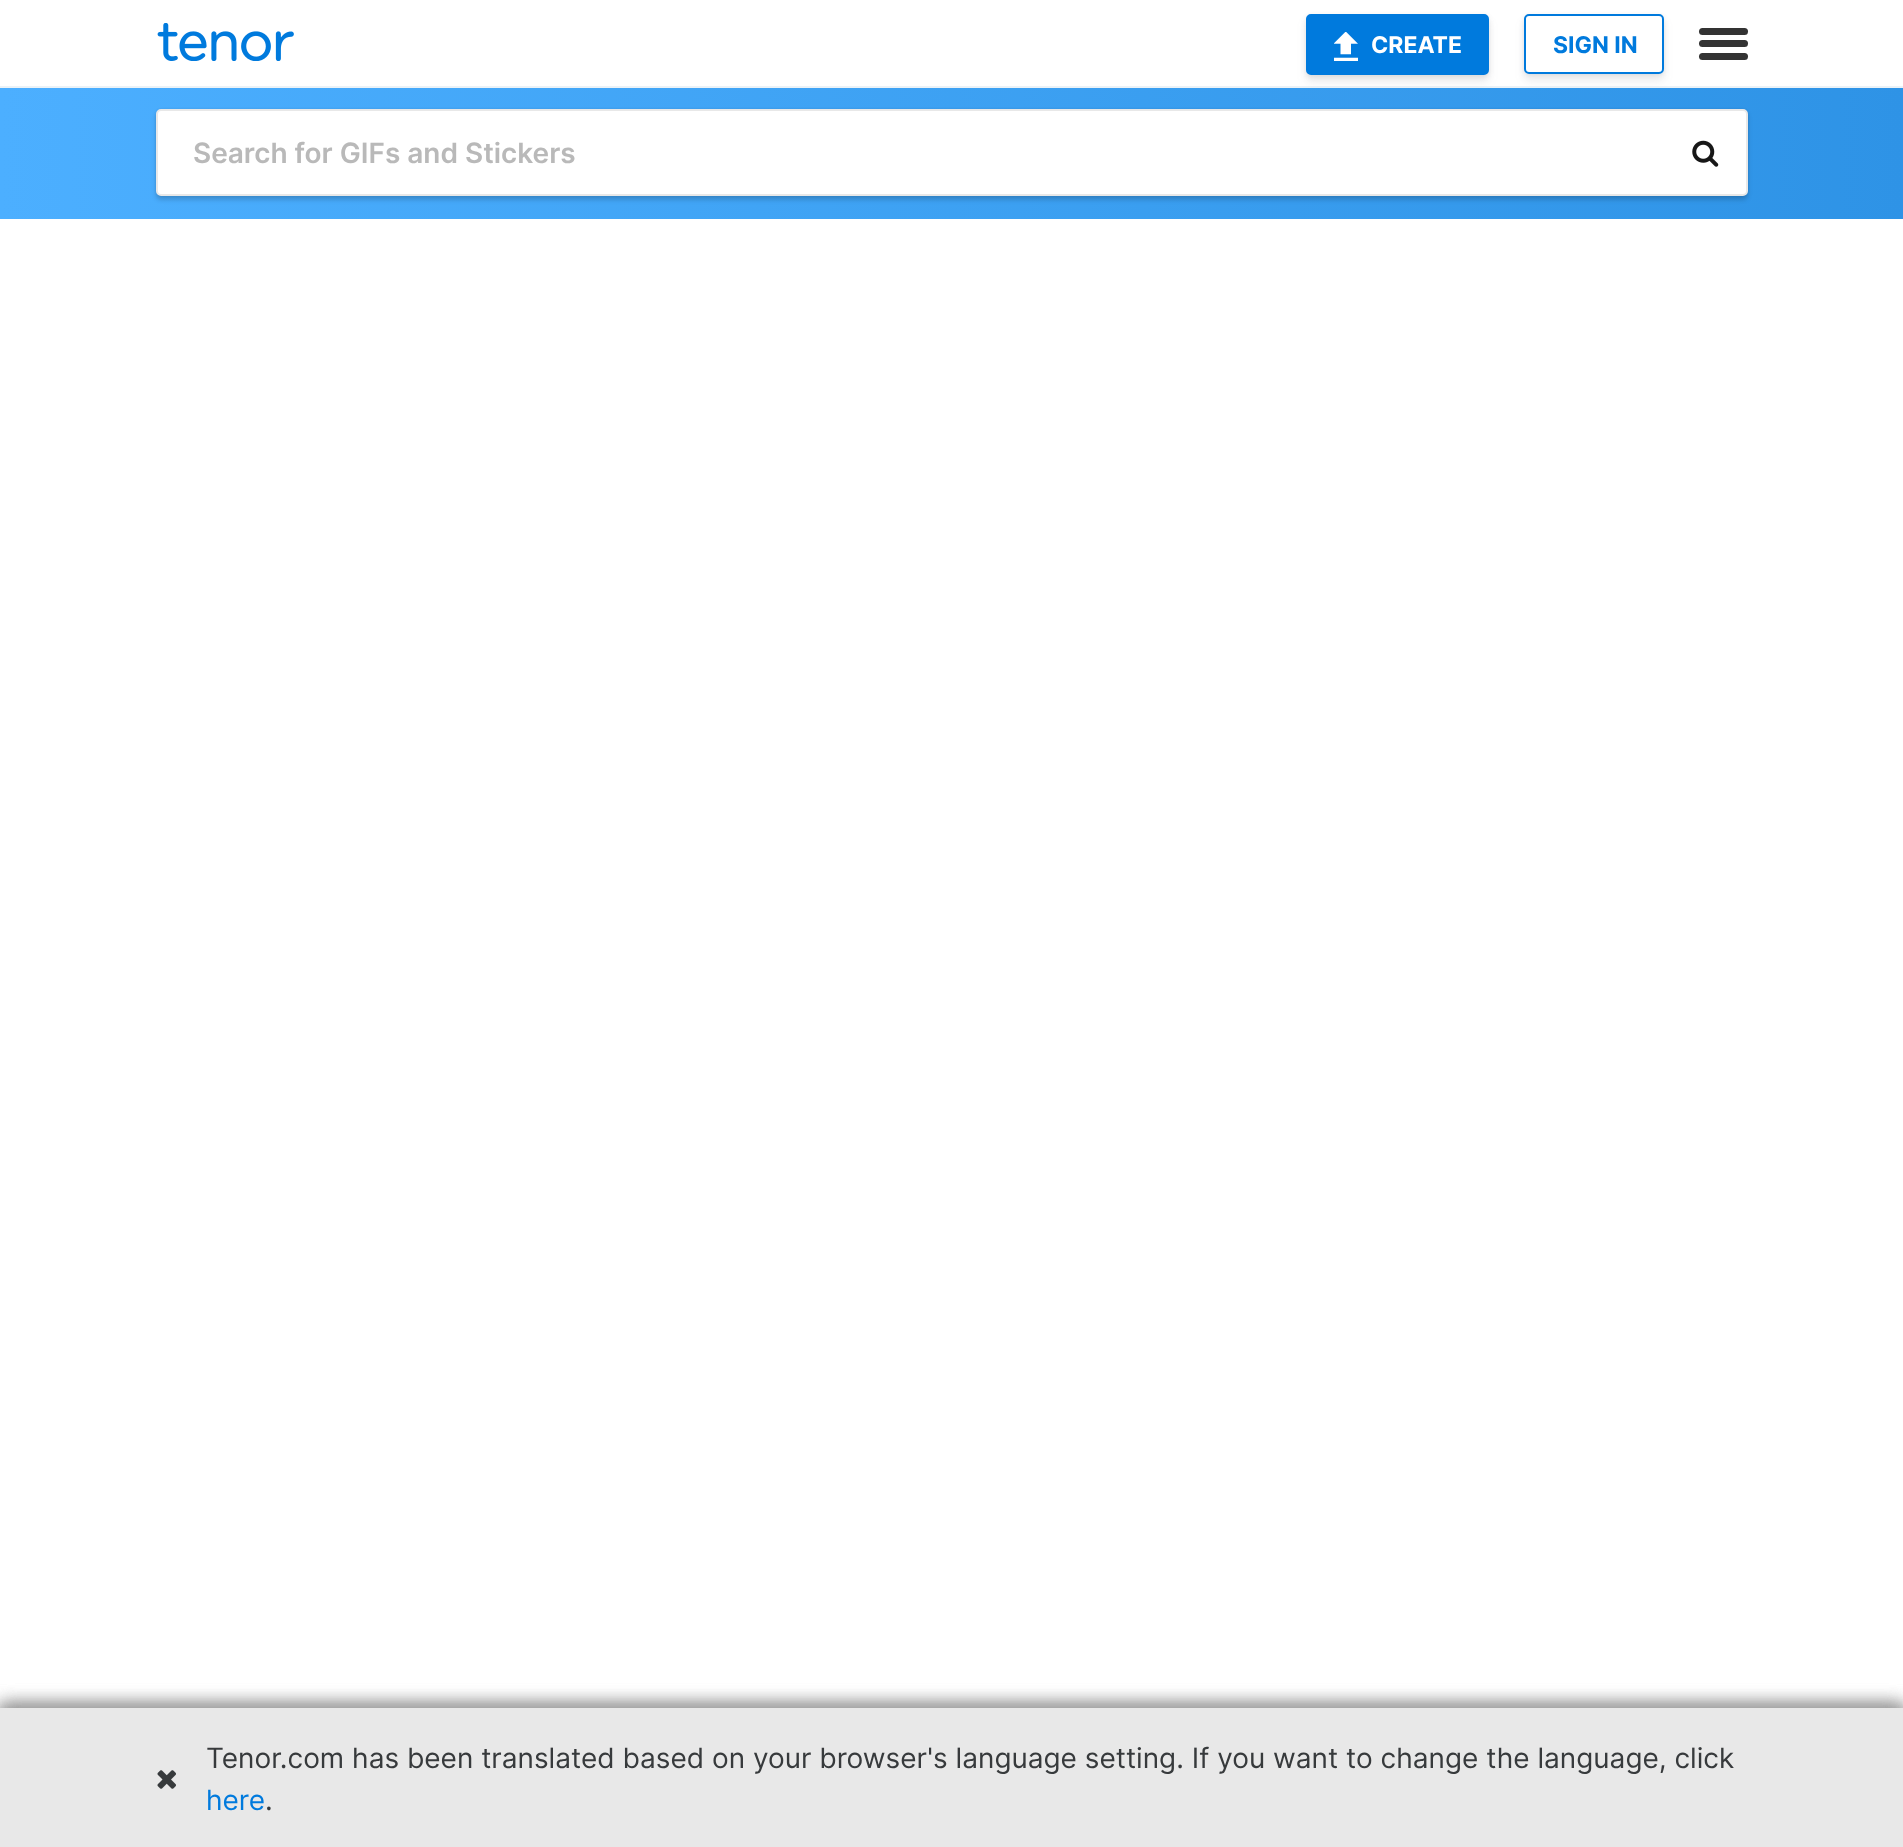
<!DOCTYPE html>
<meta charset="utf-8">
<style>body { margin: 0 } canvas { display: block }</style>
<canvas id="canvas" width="1903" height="1847"></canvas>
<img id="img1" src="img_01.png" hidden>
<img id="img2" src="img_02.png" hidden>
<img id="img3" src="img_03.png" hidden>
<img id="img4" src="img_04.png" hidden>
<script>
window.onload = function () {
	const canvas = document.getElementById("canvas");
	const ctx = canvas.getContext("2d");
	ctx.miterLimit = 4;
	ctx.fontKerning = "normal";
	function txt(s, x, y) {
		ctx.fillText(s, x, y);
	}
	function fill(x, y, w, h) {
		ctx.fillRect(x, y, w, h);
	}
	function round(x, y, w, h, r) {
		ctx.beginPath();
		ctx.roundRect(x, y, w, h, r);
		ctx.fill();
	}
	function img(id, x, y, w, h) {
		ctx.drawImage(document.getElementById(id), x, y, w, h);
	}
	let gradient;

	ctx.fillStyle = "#FFFFFF";
	fill(0, 0, 1903, 1847);
	ctx.fillStyle = "#EBF2F7";
	fill(0, 86, 1903, 2);
	img("img1", 157, 23, 137, 38);
	ctx.fillStyle = "rgba(83, 83, 92, 0.11)";
	ctx.filter = "blur(5px)";
	ctx.beginPath();
	ctx.roundRect(1306, 21, 183, 61, 5);
	ctx.fill();
	ctx.filter = "none";
	ctx.fillStyle = "rgba(0, 0, 0, 0.08)";
	ctx.filter = "blur(2.5px)";
	ctx.beginPath();
	ctx.roundRect(1306, 16, 183, 61, 5);
	ctx.fill();
	ctx.filter = "none";
	ctx.fillStyle = "#007ADD";
	ctx.beginPath();
	ctx.roundRect(1307, 15, 181, 59, 4);
	ctx.fill();
	ctx.strokeStyle = "#007ADD";
	ctx.lineWidth = 2;
	ctx.stroke();
	img("img2", 1334, 32, 24, 29);
	ctx.fillStyle = "rgba(83, 83, 92, 0.11)";
	ctx.filter = "blur(5px)";
	ctx.beginPath();
	ctx.roundRect(1524, 21, 140, 60, 5);
	ctx.fill();
	ctx.filter = "none";
	ctx.fillStyle = "rgba(0, 0, 0, 0.08)";
	ctx.filter = "blur(2.5px)";
	ctx.beginPath();
	ctx.roundRect(1524, 16, 140, 59, 5);
	ctx.fill();
	ctx.filter = "none";
	ctx.fillStyle = "#FFFFFF";
	ctx.beginPath();
	ctx.roundRect(1525, 15, 138, 58, 4);
	ctx.fill();
	ctx.stroke();
	ctx.fillStyle = "#333333";
	round(1699, 40, 49, 7, 3.5);
	round(1699, 28, 49, 7, 3.5);
	round(1699, 53, 49, 7, 3.5);
	gradient = ctx.createLinearGradient(0, 153, 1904, 153);
	gradient.addColorStop(0, "#4CAFFF");
	gradient.addColorStop(1, "#2E93E6");
	ctx.fillStyle = gradient;
	fill(0, 88, 1903, 131);
	ctx.fillStyle = "rgba(0, 0, 0, 0.08)";
	ctx.filter = "blur(1px)";
	ctx.beginPath();
	ctx.roundRect(156, 109, 1592, 87, 5);
	ctx.fill();
	ctx.filter = "none";
	ctx.fillStyle = "rgba(0, 0, 0, 0.16)";
	ctx.filter = "blur(2px)";
	ctx.beginPath();
	ctx.roundRect(156, 112, 1592, 88, 5);
	ctx.fill();
	ctx.filter = "none";
	ctx.fillStyle = "#FFFFFF";
	ctx.beginPath();
	ctx.roundRect(157, 110, 1590, 85, 4);
	ctx.fill();
	ctx.strokeStyle = "#E8E8E8";
	ctx.stroke();
	img("img3", 1692, 140, 27, 27);
	ctx.fillStyle = "#999999";
	ctx.filter = "blur(9px)";
	ctx.beginPath();
	ctx.rect(0, 1705, 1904, 140);
	ctx.fill();
	ctx.filter = "none";
	ctx.filter = "blur(9px)";
	ctx.beginPath();
	ctx.rect(0, 1705, 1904, 140);
	ctx.fill();
	ctx.filter = "none";
	ctx.fillStyle = "#E8E8E8";
	fill(0, 1708, 1903, 139);
	img("img4", 157, 1770, 19, 19);
	ctx.font = "bold 23px Inter";
	ctx.fillStyle = "#FFFFFF";
	txt("CREATE", 1371, 53);
	ctx.fillStyle = "#007ADD";
	txt("SIGN IN", 1553, 53);
	ctx.font = "600 28px Inter";
	ctx.fillStyle = "#B9B9B9";
	txt("Search for GIFs and Stickers", 193, 163);
	ctx.font = "28px Inter";
	ctx.fillStyle = "#373A3C";
	txt("Tenor.com has been translated based on your browser's language setting. If you want to change the language, click", 206, 1768);
	ctx.fillStyle = "#007ADD";
	txt("here", 206, 1810);
	ctx.fillStyle = "#373A3C";
	txt(".", 265, 1810);
};
</script>
